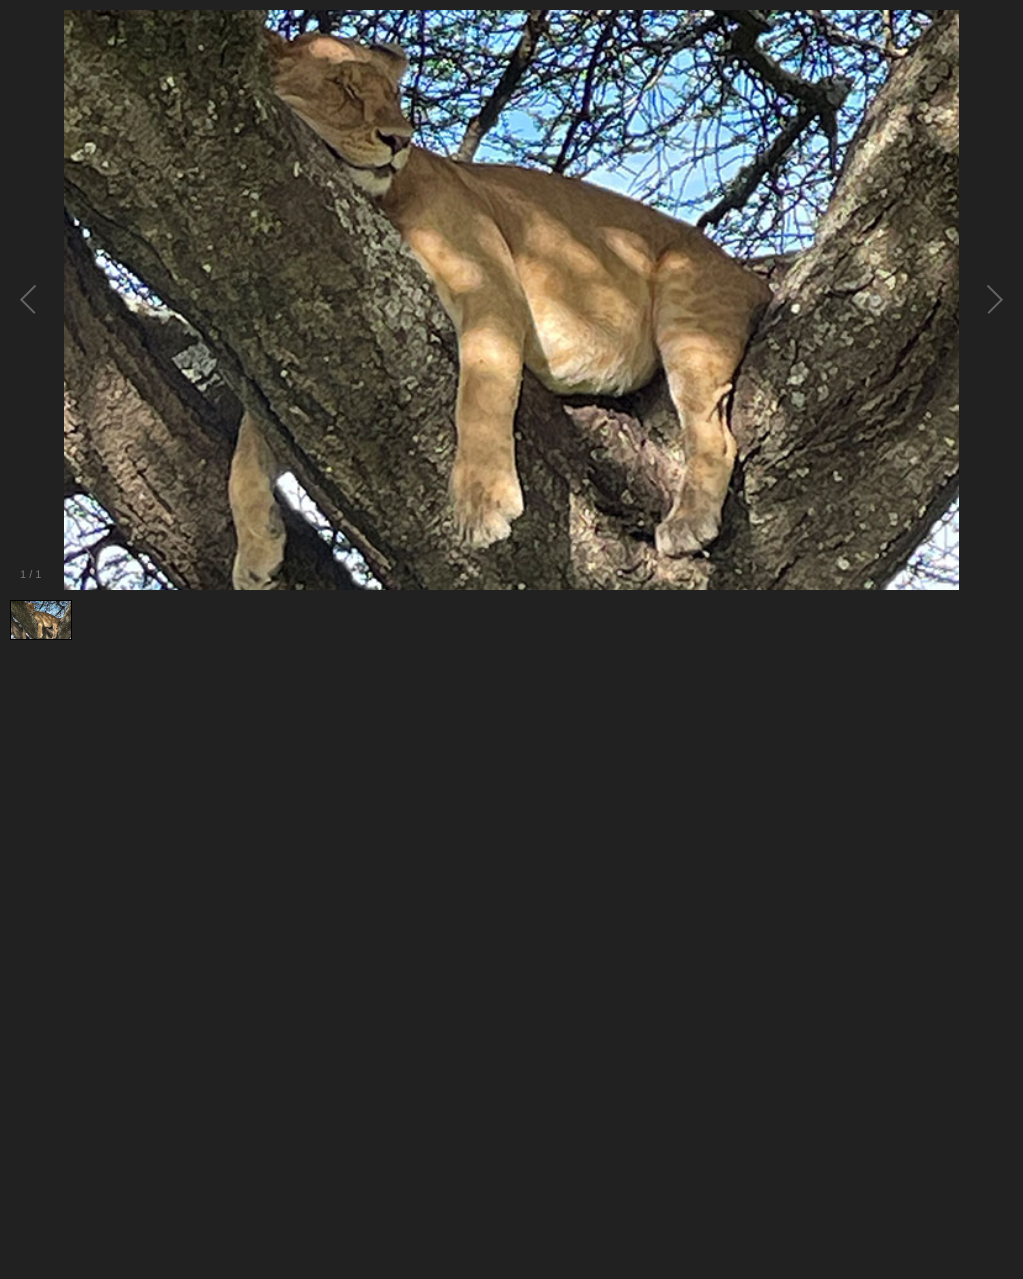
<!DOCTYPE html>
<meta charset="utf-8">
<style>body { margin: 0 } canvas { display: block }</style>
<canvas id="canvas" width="1023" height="1279"></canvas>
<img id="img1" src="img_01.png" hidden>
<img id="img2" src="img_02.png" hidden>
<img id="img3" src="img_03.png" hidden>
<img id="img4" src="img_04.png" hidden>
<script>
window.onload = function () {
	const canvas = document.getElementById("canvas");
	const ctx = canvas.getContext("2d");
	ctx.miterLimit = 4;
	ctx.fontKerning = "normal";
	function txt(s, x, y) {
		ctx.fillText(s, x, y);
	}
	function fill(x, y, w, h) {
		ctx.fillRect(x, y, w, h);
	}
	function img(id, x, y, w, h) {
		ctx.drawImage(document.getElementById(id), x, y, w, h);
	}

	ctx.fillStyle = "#212121";
	fill(0, 0, 1023, 1279);
	img("img1", 64, 10, 895, 580);
	img("img2", 20, 285, 16, 29);
	img("img3", 987, 285, 16, 29);
	ctx.fillStyle = "#000000";
	fill(10, 600, 62, 40);
	img("img4", 11, 601, 60, 38);
	ctx.font = "11px Liberation Sans";
	ctx.fillStyle = "#7A7A7A";
	txt("1 / 1", 20, 578);
};
</script>
